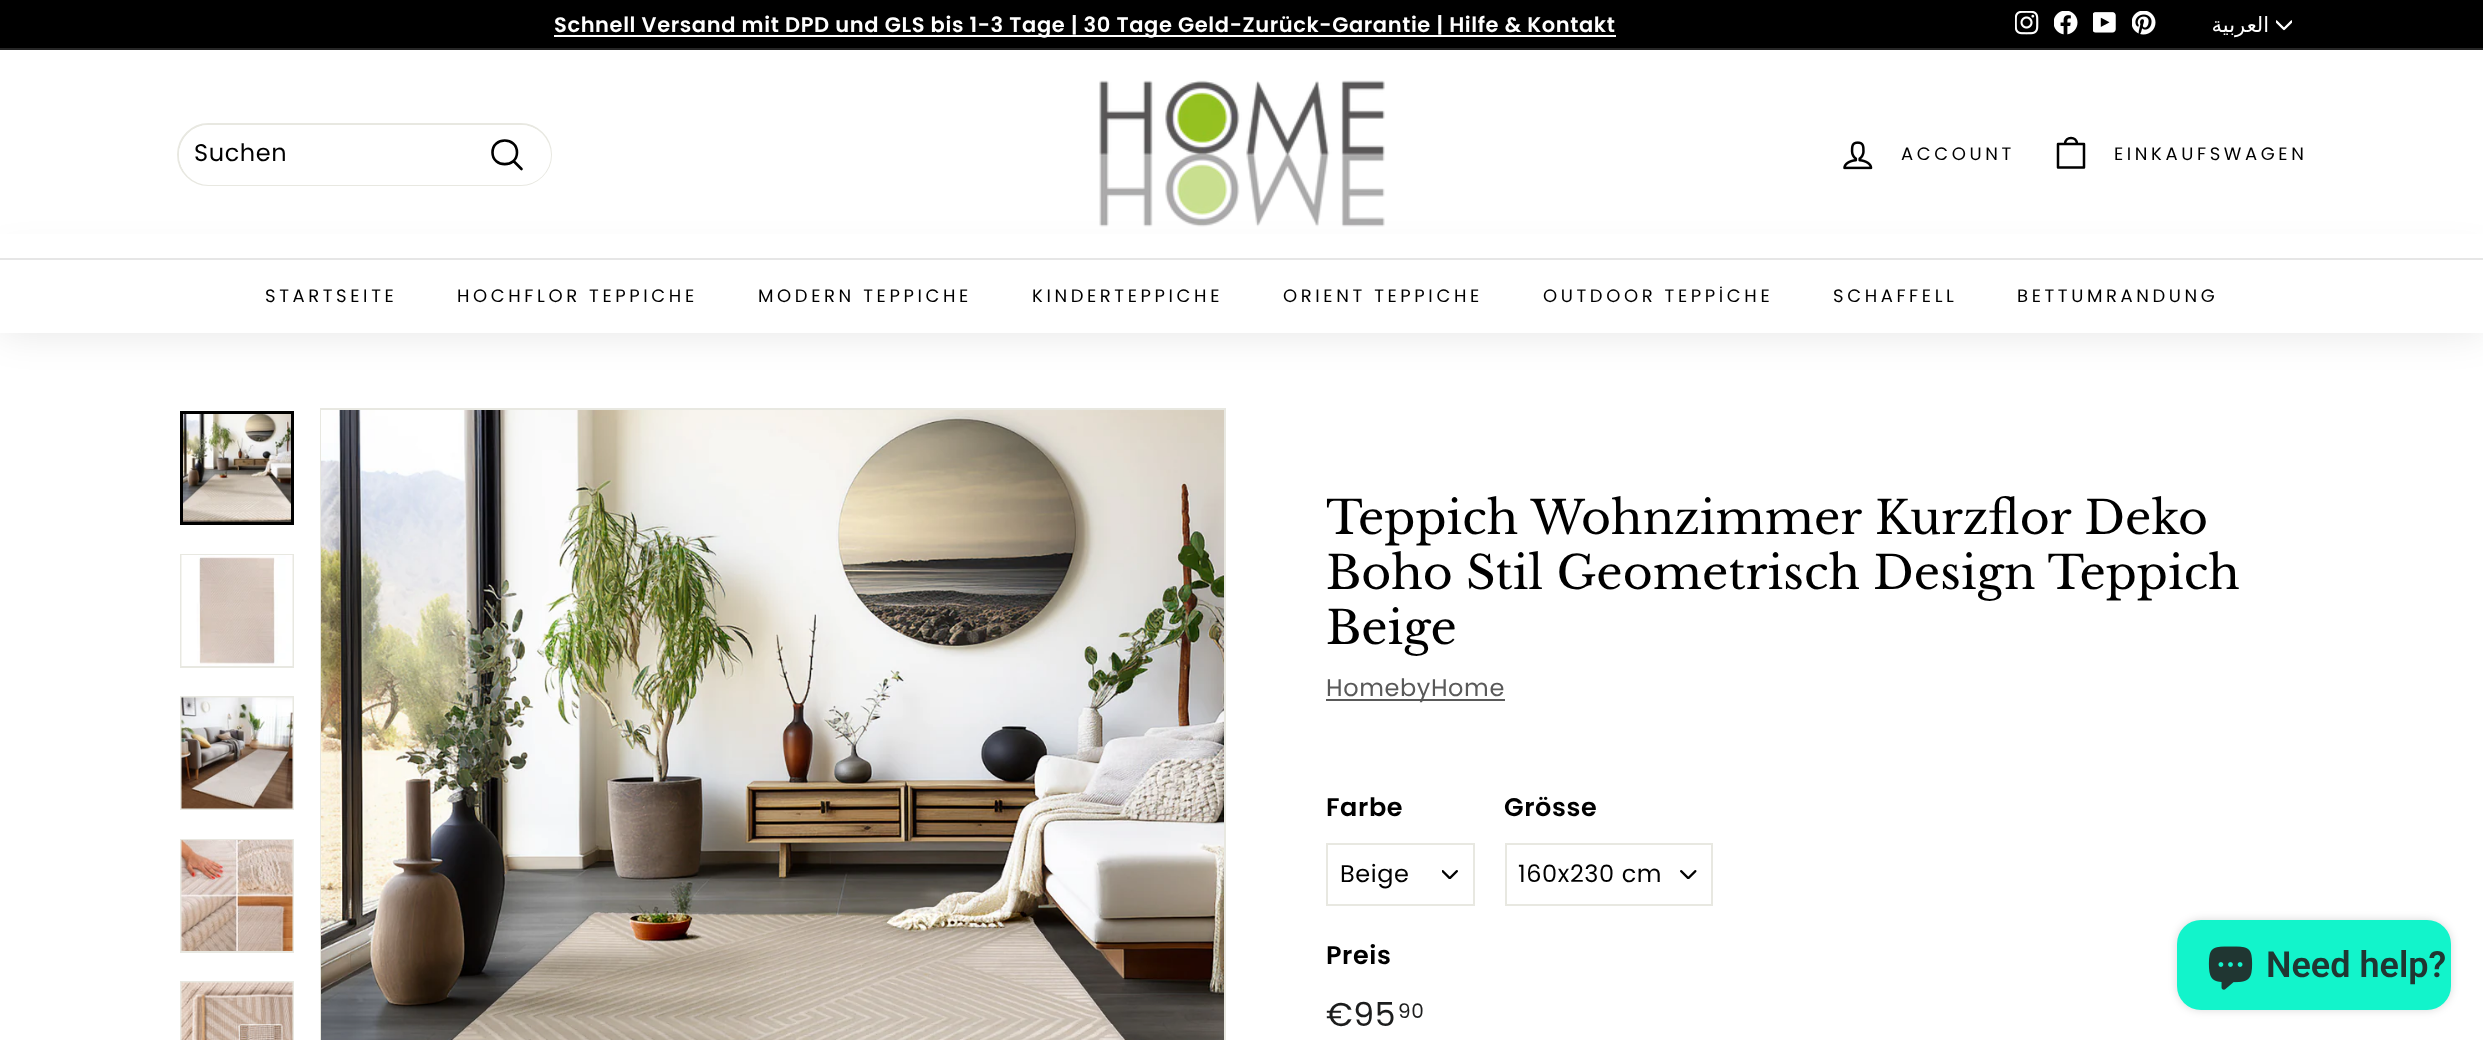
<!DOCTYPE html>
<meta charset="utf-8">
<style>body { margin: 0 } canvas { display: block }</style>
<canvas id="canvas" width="2483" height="1040"></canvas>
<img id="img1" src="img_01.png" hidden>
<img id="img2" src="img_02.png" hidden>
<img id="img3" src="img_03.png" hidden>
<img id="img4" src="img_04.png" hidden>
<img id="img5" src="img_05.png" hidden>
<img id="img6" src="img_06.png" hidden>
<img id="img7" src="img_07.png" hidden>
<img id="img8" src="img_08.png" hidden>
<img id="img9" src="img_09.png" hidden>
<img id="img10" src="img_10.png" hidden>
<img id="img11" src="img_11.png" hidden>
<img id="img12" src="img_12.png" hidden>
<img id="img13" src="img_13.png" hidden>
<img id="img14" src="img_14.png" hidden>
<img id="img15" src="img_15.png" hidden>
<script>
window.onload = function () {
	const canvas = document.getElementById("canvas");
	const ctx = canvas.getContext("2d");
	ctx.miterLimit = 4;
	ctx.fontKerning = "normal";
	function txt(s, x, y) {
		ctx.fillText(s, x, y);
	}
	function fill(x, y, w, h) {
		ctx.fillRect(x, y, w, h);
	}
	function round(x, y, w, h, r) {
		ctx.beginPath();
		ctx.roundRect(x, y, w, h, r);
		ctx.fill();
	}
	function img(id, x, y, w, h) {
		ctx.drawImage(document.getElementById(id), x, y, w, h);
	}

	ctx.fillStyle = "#FFFFFF";
	fill(0, 0, 2483, 1040);
	ctx.fillStyle = "#000000";
	fill(0, 0, 2483, 48);
	ctx.fillStyle = "#FFFFFF";
	fill(554, 35, 1062, 2);
	img("img1", 2015, 11, 24, 24);
	img("img2", 2054, 11, 24, 24);
	img("img3", 2093, 12, 23, 21);
	img("img4", 2132, 11, 24, 24);
	ctx.save();
	ctx.beginPath();
	ctx.rect(2276, 18, 16, 17);
	ctx.clip();
	ctx.beginPath();
	ctx.moveTo(2276.5, 21.5);
	ctx.lineTo(2284, 29);
	ctx.lineTo(2291.5, 21.5);
	ctx.strokeStyle = "#FFFFFF";
	ctx.lineWidth = 2.4;
	ctx.lineCap = "round";
	ctx.lineJoin = "round";
	ctx.stroke();
	ctx.restore();
	ctx.fillStyle = "#262626";
	fill(0, 48, 2483, 2);
	ctx.fillStyle = "rgba(0, 0, 0, 0.1)";
	ctx.filter = "blur(19px)";
	ctx.beginPath();
	ctx.rect(0, 258, 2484, 75);
	ctx.fill();
	ctx.filter = "none";
	ctx.fillStyle = "#FFFFFF";
	fill(0, 234, 2483, 24);
	ctx.beginPath();
	ctx.roundRect(178, 124, 373, 61, 30.5);
	ctx.strokeStyle = "#E8E8E1";
	ctx.lineWidth = 2;
	ctx.stroke();
	round(179, 125, 372, 60, 30);
	ctx.beginPath();
	ctx.moveTo(517, 152.5);
	ctx.bezierCurveTo(517, 168, 492.5, 168, 492.5, 152.5);
	ctx.bezierCurveTo(492.5, 136.5, 517, 136.5, 517, 152.5);
	ctx.closePath();
	ctx.moveTo(521.5, 169);
	ctx.lineTo(513.5, 161);
	ctx.strokeStyle = "#000000";
	ctx.lineWidth = 2.6;
	ctx.lineCap = "round";
	ctx.lineJoin = "round";
	ctx.stroke();
	img("img5", 1099, 80, 286, 147);
	img("img6", 1843, 141, 30, 29);
	ctx.beginPath();
	ctx.moveTo(2065, 144);
	ctx.bezierCurveTo(2065, 136, 2077, 136, 2077, 144);
	ctx.moveTo(2058, 144);
	ctx.lineTo(2084, 144);
	ctx.lineTo(2084, 167.5);
	ctx.lineTo(2058, 167.5);
	ctx.closePath();
	ctx.lineWidth = 2.5;
	ctx.stroke();
	fill(0, 260, 2483, 73);
	ctx.fillStyle = "#E6E6E6";
	fill(0, 258, 2483, 2);
	img("img7", 183, 414, 108, 108);
	ctx.lineWidth = 3;
	ctx.lineJoin = "miter";
	ctx.strokeRect(181.5, 412.5, 111, 111);
	ctx.strokeStyle = "#E8E8E1";
	ctx.lineWidth = 2;
	ctx.strokeRect(181, 555, 112, 112);
	img("img8", 181, 555, 112, 111);
	ctx.strokeRect(181, 697, 112, 112);
	img("img9", 181, 697, 112, 112);
	ctx.strokeRect(181, 840, 112, 112);
	img("img10", 181, 840, 112, 111);
	ctx.strokeRect(181, 982, 112, 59);
	img("img11", 181, 982, 112, 58);
	ctx.strokeRect(321, 409, 904, 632);
	img("img12", 321, 410, 903, 630);
	ctx.fillStyle = "#595959";
	fill(1326, 699, 179, 2);
	img("img13", 1442, 870, 16, 9);
	ctx.strokeRect(1327, 844, 147, 61);
	img("img14", 1680, 870, 17, 9);
	ctx.strokeRect(1506, 844, 206, 61);
	ctx.fillStyle = "rgba(0, 0, 0, 0.15)";
	ctx.filter = "blur(4px)";
	ctx.beginPath();
	ctx.roundRect(2177, 920, 274, 90, 24);
	ctx.fill();
	ctx.filter = "none";
	ctx.fillStyle = "#12F4CB";
	round(2177, 920, 274, 90, 24);
	img("img15", 2208, 946, 45, 44);
	ctx.letterSpacing = "0.6px";
	ctx.font = "600 21px Poppins";
	ctx.fillStyle = "#FFFFFF";
	txt("Schnell Versand mit DPD und GLS bis 1-3 Tage | 30 Tage Geld-Zurück-Garantie | Hilfe & Kontakt", 554, 32);
	ctx.letterSpacing = "0.5px";
	ctx.direction = "rtl";
	ctx.font = "21px DejaVu Sans";
	txt("العربية", 2269, 32);
	ctx.letterSpacing = "0.6px";
	ctx.direction = "ltr";
	ctx.font = "24px Poppins";
	ctx.fillStyle = "#000000";
	txt("Suchen", 194, 161);
	ctx.letterSpacing = "3.6px";
	ctx.font = "18px Poppins";
	txt("ACCOUNT", 1901, 160);
	txt("EINKAUFSWAGEN", 2114, 160);
	txt("STARTSEITE", 265, 302);
	txt("HOCHFLOR TEPPICHE", 457, 302);
	txt("MODERN TEPPICHE", 758, 302);
	txt("KINDERTEPPICHE", 1032, 302);
	txt("ORIENT TEPPICHE", 1283, 302);
	txt("OUTDOOR TEPPİCHE", 1543, 302);
	txt("SCHAFFELL", 1833, 302);
	txt("BETTUMRANDUNG", 2017, 302);
	ctx.letterSpacing = "0px";
	ctx.wordSpacing = "1px";
	ctx.font = "45.9px Libre Baskerville";
	txt("Teppich Wohnzimmer Kurzflor Deko", 1326, 534);
	ctx.wordSpacing = "0px";
	txt("Boho Stil Geometrisch Design Teppich", 1326, 589);
	txt("Beige", 1326, 644);
	ctx.letterSpacing = "0.6px";
	ctx.font = "24px Poppins";
	ctx.fillStyle = "#595959";
	txt("HomebyHome", 1326, 696);
	ctx.font = "600 25.5px Poppins";
	ctx.fillStyle = "#000000";
	txt("Farbe", 1326, 816);
	ctx.font = "24px Poppins";
	txt("Beige", 1340, 882);
	ctx.font = "600 25.5px Poppins";
	txt("Grösse", 1504, 816);
	ctx.font = "24px Poppins";
	txt("160x230 cm", 1518, 882);
	ctx.font = "600 25.5px Poppins";
	txt("Preis", 1326, 964);
	ctx.font = "33px Poppins";
	ctx.fillStyle = "#1C1D1D";
	txt("€95", 1326, 1026);
	ctx.font = "20px Poppins";
	txt("90", 1398, 1018);
	ctx.letterSpacing = "0px";
	ctx.font = "600 36px Roboto";
	ctx.fillStyle = "#203632";
	txt("Need help?", 2266, 977);
};
</script>
